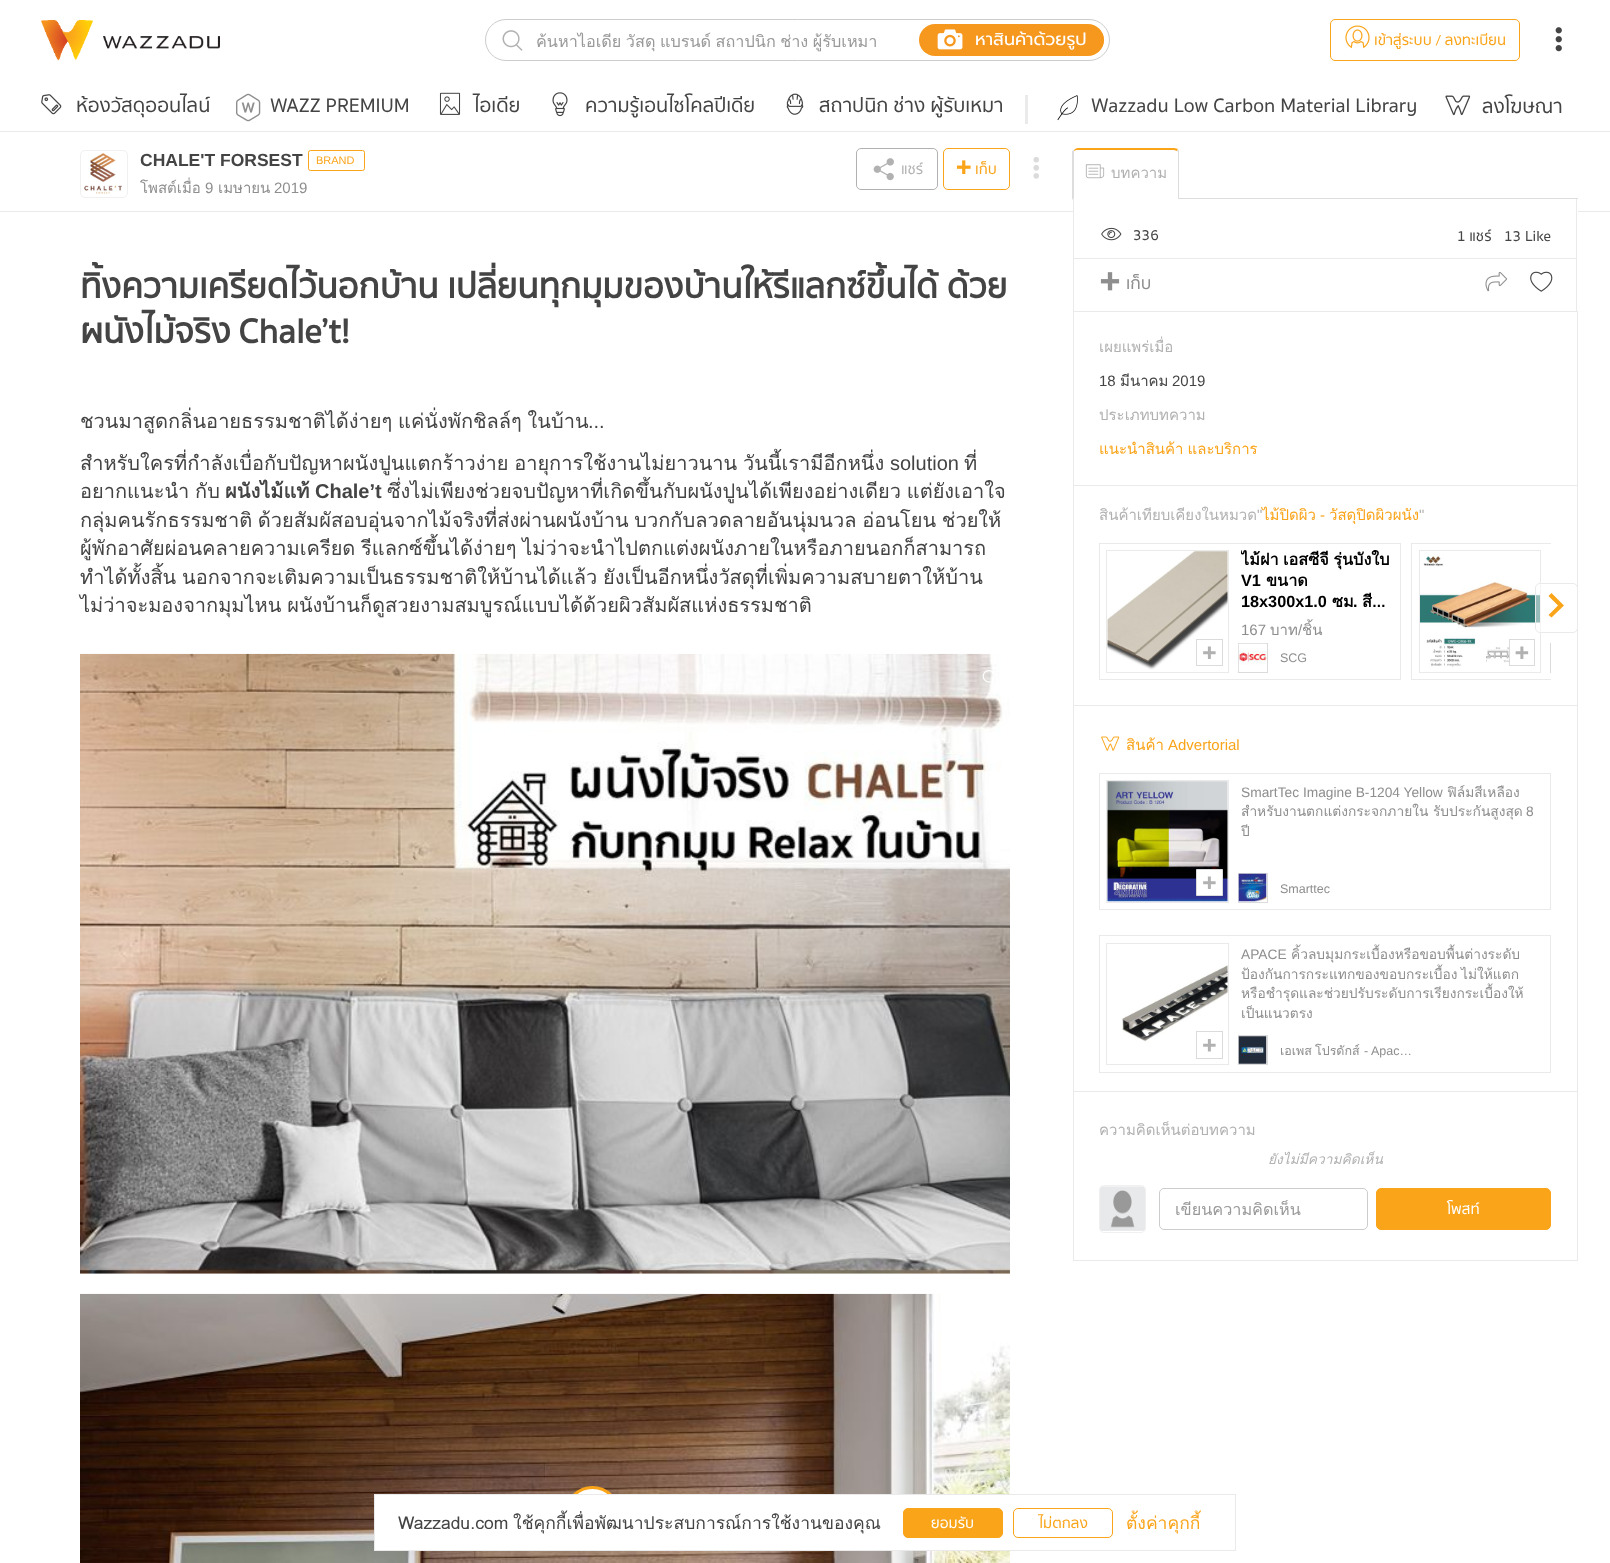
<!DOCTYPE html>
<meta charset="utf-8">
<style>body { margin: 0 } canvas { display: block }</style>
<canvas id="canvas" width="1610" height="1563"></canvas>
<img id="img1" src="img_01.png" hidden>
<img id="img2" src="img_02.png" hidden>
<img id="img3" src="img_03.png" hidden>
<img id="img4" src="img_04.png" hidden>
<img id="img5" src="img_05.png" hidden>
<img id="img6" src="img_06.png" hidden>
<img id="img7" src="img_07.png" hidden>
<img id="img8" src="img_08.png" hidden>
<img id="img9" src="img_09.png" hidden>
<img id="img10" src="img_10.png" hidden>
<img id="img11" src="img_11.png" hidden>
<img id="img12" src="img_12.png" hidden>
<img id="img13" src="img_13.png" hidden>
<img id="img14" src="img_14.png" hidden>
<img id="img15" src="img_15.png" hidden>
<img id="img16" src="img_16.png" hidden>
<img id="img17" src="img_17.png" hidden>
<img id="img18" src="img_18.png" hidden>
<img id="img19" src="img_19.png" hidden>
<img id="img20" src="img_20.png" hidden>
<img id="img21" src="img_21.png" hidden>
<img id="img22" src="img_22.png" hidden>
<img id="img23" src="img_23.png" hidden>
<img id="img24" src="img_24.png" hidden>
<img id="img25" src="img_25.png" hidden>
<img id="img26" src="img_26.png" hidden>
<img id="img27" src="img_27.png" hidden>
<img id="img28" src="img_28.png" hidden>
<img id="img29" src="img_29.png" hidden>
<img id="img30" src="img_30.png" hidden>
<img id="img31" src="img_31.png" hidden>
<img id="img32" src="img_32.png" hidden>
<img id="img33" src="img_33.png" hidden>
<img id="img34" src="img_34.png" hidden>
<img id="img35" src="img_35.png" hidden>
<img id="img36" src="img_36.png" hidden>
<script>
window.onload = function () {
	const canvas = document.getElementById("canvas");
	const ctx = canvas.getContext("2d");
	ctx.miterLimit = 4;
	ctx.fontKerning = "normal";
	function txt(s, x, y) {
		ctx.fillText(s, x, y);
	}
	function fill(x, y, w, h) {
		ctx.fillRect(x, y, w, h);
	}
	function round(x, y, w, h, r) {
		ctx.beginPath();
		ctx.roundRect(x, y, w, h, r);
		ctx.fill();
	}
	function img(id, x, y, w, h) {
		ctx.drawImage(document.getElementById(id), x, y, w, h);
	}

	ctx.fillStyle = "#FFFFFF";
	fill(0, 0, 1610, 1563);
	img("img1", 41, 20, 179, 41);
	ctx.beginPath();
	ctx.roundRect(485.5, 19.5, 624, 41, 20.5);
	ctx.strokeStyle = "#CCCCCC";
	ctx.stroke();
	img("img2", 502, 30, 21, 21);
	ctx.beginPath();
	ctx.roundRect(1010.5, 25.5, 93, 29, 14.5);
	ctx.strokeStyle = "#FAA41A";
	ctx.stroke();
	ctx.fillStyle = "#F7981E";
	round(919, 24, 185, 32, 16);
	img("img3", 937, 29, 26, 21);
	ctx.beginPath();
	ctx.roundRect(1330.5, 19.5, 189, 41, 4.5);
	ctx.stroke();
	img("img4", 1345, 25, 25, 24);
	img("img5", 1555, 27, 7, 25);
	ctx.fillStyle = "#EAEAEA";
	fill(0, 131, 1610, 1);
	img("img6", 41, 94, 21, 21);
	img("img7", 236, 93, 25, 29);
	img("img8", 439, 92, 22, 23);
	img("img9", 552, 92, 16, 25);
	img("img10", 786, 93, 18, 22);
	fill(1025, 95, 3, 29);
	img("img11", 1057, 95, 21, 26);
	img("img12", 1445, 95, 26, 21);
	fill(0, 211, 1610, 1);
	ctx.beginPath();
	ctx.roundRect(80.5, 150.5, 47, 47, 4.5);
	ctx.strokeStyle = "#F0F0F0";
	ctx.stroke();
	img("img13", 84, 153, 38, 41);
	ctx.beginPath();
	ctx.roundRect(308.5, 150.5, 56, 20, 2);
	ctx.strokeStyle = "#FAA41A";
	ctx.stroke();
	ctx.beginPath();
	ctx.roundRect(856.5, 148.5, 81, 41, 4.5);
	ctx.strokeStyle = "#B1B1B1";
	ctx.stroke();
	img("img14", 873, 158, 21, 23);
	ctx.beginPath();
	ctx.roundRect(943.5, 148.5, 66, 41, 4.5);
	ctx.strokeStyle = "#FAA41A";
	ctx.stroke();
	img("img15", 956, 160, 15, 14);
	img("img16", 1033, 157, 6, 22);
	ctx.fillStyle = "#DDDDDD";
	fill(1179, 198, 399, 1);
	ctx.fillStyle = "#FAA41A";
	ctx.beginPath();
	ctx.moveTo(1078, 148);
	ctx.bezierCurveTo(1076, 148, 1075, 149, 1074, 150);
	ctx.lineTo(1074, 151);
	ctx.bezierCurveTo(1075, 150, 1076, 150, 1078, 150);
	ctx.lineTo(1174, 150);
	ctx.lineTo(1177, 151);
	ctx.lineTo(1178, 149);
	ctx.bezierCurveTo(1177, 149, 1176, 148, 1174, 148);
	ctx.closePath();
	ctx.fill();
	ctx.fillStyle = "#DDDDDD";
	ctx.beginPath();
	ctx.moveTo(1179, 151);
	ctx.lineTo(1179, 200);
	ctx.lineTo(1178, 199);
	ctx.lineTo(1178, 152);
	ctx.lineTo(1177, 151);
	ctx.lineTo(1178, 149);
	ctx.closePath();
	ctx.fill();
	ctx.beginPath();
	ctx.moveTo(1072, 200);
	ctx.lineTo(1074, 198);
	ctx.lineTo(1074, 151);
	ctx.lineTo(1074, 150);
	ctx.lineTo(1072, 151);
	ctx.closePath();
	ctx.fill();
	img("img17", 1085, 164, 20, 15);
	ctx.fillStyle = "#EAEAEA";
	fill(1576, 213, 1, 100);
	ctx.fillStyle = "#FFFFFF";
	fill(1074, 199, 504, 15);
	ctx.fillStyle = "#EAEAEA";
	fill(1576, 199, 1, 15);
	fill(1073, 213, 1, 100);
	fill(1073, 199, 1, 15);
	img("img18", 80, 653, 930, 621);
	img("img19", 982, 670, 11, 13);
	img("img20", 80, 1293, 930, 270);
	ctx.fillStyle = "#FFFFFF";
	ctx.beginPath();
	ctx.arc(592.5, 1513.5, 26, 0, Math.PI * 2);
	ctx.fill();
	ctx.lineWidth = 3;
	ctx.stroke();
	ctx.fillStyle = "#EAEAEA";
	fill(1074, 258, 502, 1);
	img("img21", 1101, 227, 21, 14);
	img("img22", 1100, 272, 20, 19);
	img("img23", 1485, 272, 22, 20);
	img("img24", 1530, 271, 23, 21);
	ctx.fillStyle = "#FFFFFF";
	fill(1576, 312, 1, 1);
	ctx.strokeStyle = "#EAEAEA";
	ctx.lineWidth = 1;
	ctx.strokeRect(1073.5, 311.5, 504, 174);
	ctx.strokeRect(1073.5, 705.5, 504, 393);
	ctx.strokeRect(1073.5, 485.5, 504, 220);
	ctx.strokeRect(1099.5, 543.5, 301, 136);
	img("img25", 1107, 551, 121, 119);
	ctx.strokeRect(1106.5, 550.5, 122, 122);
	ctx.strokeStyle = "#DBDBDB";
	ctx.strokeRect(1196.5, 639.5, 26, 26);
	img("img26", 1203, 646, 13, 13);
	ctx.strokeRect(1238.5, 643.5, 29, 29);
	img("img27", 1238, 643, 29, 28);
	ctx.save();
	ctx.beginPath();
	ctx.rect(1099, 543, 452, 137);
	ctx.clip();
	ctx.strokeStyle = "#EAEAEA";
	ctx.strokeRect(1411.5, 543.5, 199, 136);
	ctx.restore();
	img("img28", 1420, 551, 120, 116);
	ctx.strokeStyle = "#EAEAEA";
	ctx.strokeRect(1419.5, 550.5, 121, 122);
	fill(1510, 647, 20, 16);
	ctx.strokeStyle = "#DBDBDB";
	ctx.strokeRect(1509.5, 639.5, 25, 26);
	img("img29", 1515, 646, 14, 13);
	ctx.save();
	ctx.beginPath();
	ctx.rect(1550, 643, 1, 30);
	ctx.clip();
	ctx.strokeRect(1550.5, 643.5, 29, 29);
	ctx.restore();
	ctx.fillStyle = "rgba(255, 255, 255, 0.5)";
	ctx.beginPath();
	ctx.roundRect(1535.5, 583.5, 42, 49, 4.5);
	ctx.fill();
	ctx.strokeStyle = "#EAEAEA";
	ctx.stroke();
	ctx.fillStyle = "#FAA41A";
	ctx.beginPath();
	ctx.moveTo(1564, 605.5);
	ctx.lineTo(1551.5, 617.5);
	ctx.lineTo(1548.5, 615);
	ctx.lineTo(1558, 605.5);
	ctx.lineTo(1548.5, 596);
	ctx.lineTo(1551.5, 593);
	ctx.closePath();
	ctx.fill();
	img("img30", 1101, 736, 19, 15);
	ctx.strokeRect(1099.5, 773.5, 451, 136);
	img("img31", 1107, 781, 121, 121);
	ctx.strokeRect(1106.5, 780.5, 122, 122);
	ctx.fillStyle = "#FFFFFF";
	ctx.beginPath();
	ctx.rect(1196.5, 869.5, 26, 26);
	ctx.fill();
	ctx.strokeStyle = "#DBDBDB";
	ctx.stroke();
	img("img26", 1203, 876, 13, 13);
	ctx.strokeRect(1238.5, 873.5, 29, 29);
	img("img32", 1238, 873, 29, 29);
	ctx.strokeStyle = "#EAEAEA";
	ctx.strokeRect(1099.5, 935.5, 451, 137);
	img("img33", 1122, 965, 106, 77);
	ctx.strokeRect(1106.5, 943.5, 122, 121);
	ctx.strokeStyle = "#DBDBDB";
	ctx.strokeRect(1196.5, 1031.5, 26, 27);
	img("img34", 1203, 1039, 13, 13);
	ctx.strokeRect(1238.5, 1035.5, 29, 29);
	img("img35", 1238, 1036, 29, 28);
	fill(1074, 1098, 503, 1);
	ctx.strokeStyle = "#EAEAEA";
	ctx.strokeRect(1073.5, 1091.5, 504, 169);
	ctx.beginPath();
	ctx.roundRect(1099.5, 1185.5, 46, 47, 4.5);
	ctx.strokeStyle = "#F0F0F0";
	ctx.stroke();
	img("img36", 1100, 1186, 45, 45);
	ctx.beginPath();
	ctx.roundRect(1159.5, 1188.5, 208, 41, 4.5);
	ctx.strokeStyle = "#CCCCCC";
	ctx.stroke();
	ctx.fillStyle = "#FAA41A";
	ctx.beginPath();
	ctx.roundRect(1376.5, 1188.5, 174, 41, 4.5);
	ctx.fill();
	ctx.strokeStyle = "#FAA41A";
	ctx.stroke();
	ctx.fillStyle = "#FFFFFF";
	fill(375, 1495, 635, 55);
	ctx.strokeStyle = "#EAEAEA";
	ctx.strokeRect(374.5, 1494.5, 861, 56);
	ctx.fillStyle = "#FAA41A";
	ctx.beginPath();
	ctx.roundRect(903.5, 1508.5, 99, 29, 4.5);
	ctx.fill();
	ctx.strokeStyle = "#FAA41A";
	ctx.stroke();
	ctx.beginPath();
	ctx.roundRect(1013.5, 1508.5, 99, 29, 4.5);
	ctx.stroke();
	ctx.save();
	ctx.beginPath();
	ctx.rect(536, 29, 463, 26);
	ctx.clip();
	ctx.wordSpacing = "-1px";
	ctx.font = "16.25px Loma";
	ctx.fillStyle = "#999999";
	txt("ค้นหาไอเดีย วัสดุ แบรนด์ สถาปนิก ช่าง ผู้รับเหมา", 536, 47);
	ctx.restore();
	ctx.font = "17.5px Prompt";
	ctx.fillStyle = "#FFFFFF";
	txt("หาสินค้าด้วยรูป", 975, 45);
	ctx.font = "500 15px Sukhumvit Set";
	ctx.fillStyle = "#FAA41A";
	txt("เข้าสู่ระบบ / ลงทะเบียน", 1374, 45);
	ctx.font = "500 20px Sukhumvit Set";
	ctx.fillStyle = "#444444";
	txt("ห้องวัสดุออนไลน์", 76, 112);
	txt("WAZZ PREMIUM", 270, 112);
	txt("ไอเดีย", 474, 112);
	txt("ความรู้เอนไซโคลปีเดีย", 585, 112);
	txt("สถาปนิก ช่าง ผู้รับเหมา", 819, 112);
	txt("Wazzadu Low Carbon Material Library", 1091, 112);
	txt("ลงโฆษณา", 1482, 113);
	ctx.font = "bold 17.5px Liberation Sans";
	txt("CHALE'T FORSEST", 140, 166);
	ctx.font = "11px Liberation Sans";
	ctx.fillStyle = "#FAA41A";
	txt("BRAND", 316, 164);
	ctx.font = "15px Loma";
	ctx.fillStyle = "#8E8E8E";
	txt("โพสต์เมื่อ", 140, 193);
	ctx.font = "15px Liberation Sans";
	txt("9", 205, 193);
	ctx.font = "15px Loma";
	txt("เมษายน", 218, 193);
	ctx.font = "15px Liberation Sans";
	txt("2019", 274, 193);
	ctx.font = "500 15px Sukhumvit Set";
	ctx.fillStyle = "#B1B1B1";
	txt("แชร์", 901, 174);
	ctx.fillStyle = "#FAA41A";
	txt("เก็บ", 975, 174);
	ctx.font = "15px Loma";
	ctx.fillStyle = "#B1B1B1";
	txt("บทความ", 1111, 178);
	ctx.font = "bold 35px Sukhumvit Set";
	ctx.fillStyle = "#444444";
	txt("ทิ้งความเครียดไว้นอกบ้าน เปลี่ยนทุกมุมของบ้านให้รีแลกซ์ขึ้นได้ ด้วย", 80, 298);
	ctx.wordSpacing = "-1px";
	txt("ผนังไม้จริง Chale’t!", 80, 343);
	ctx.font = "20px Loma";
	txt("ชวนมาสูดกลิ่นอายธรรมชาติได้ง่ายๆ แค่นั่งพักชิลล์ๆ ในบ้าน", 80, 428);
	ctx.wordSpacing = "0px";
	ctx.font = "20px Liberation Sans";
	txt("...", 588, 428);
	ctx.wordSpacing = "-1px";
	ctx.font = "20px Loma";
	txt("สำหรับใครที่กำลังเบื่อกับปัญหาผนังปูนแตกร้าวง่าย อายุการใช้งานไม่ยาวนาน วันนี้เรามีอีกหนึ่ง", 80, 470);
	ctx.wordSpacing = "0px";
	ctx.font = "20px Liberation Sans";
	txt("solution", 890, 470);
	ctx.font = "20px Loma";
	txt("ที่", 964, 470);
	ctx.wordSpacing = "-1px";
	txt("อยากแนะนำ กับ", 80, 498);
	ctx.wordSpacing = "0px";
	ctx.font = "bold 20px Loma";
	txt("ผนังไม้แท้", 225, 498);
	ctx.font = "bold 20px Liberation Sans";
	txt("Chale’t", 315, 498);
	ctx.wordSpacing = "-1px";
	ctx.font = "20px Loma";
	txt("ซึ่งไม่เพียงช่วยจบปัญหาที่เกิดขึ้นกับผนังปูนได้เพียงอย่างเดียว แต่ยังเอาใจ", 387, 498);
	txt("กลุ่มคนรักธรรมชาติ ด้วยสัมผัสอบอุ่นจากไม้จริงที่ส่งผ่านผนังบ้าน บวกกับลวดลายอันนุ่มนวล อ่อนโยน ช่วยให้", 80, 527);
	txt("ผู้พักอาศัยผ่อนคลายความเครียด รีแลกซ์ขึ้นได้ง่ายๆ ไม่ว่าจะนำไปตกแต่งผนังภายในหรือภายนอกก็สามารถ", 80, 555);
	txt("ทำได้ทั้งสิ้น นอกจากจะเติมความเป็นธรรมชาติให้บ้านได้แล้ว ยังเป็นอีกหนึ่งวัสดุที่เพิ่มความสบายตาให้บ้าน", 80, 584);
	txt("ไม่ว่าจะมองจากมุมไหน ผนังบ้านก็ดูสวยงามสมบูรณ์แบบได้ด้วยผิวสัมผัสแห่งธรรมชาติ", 80, 612);
	ctx.wordSpacing = "0px";
	ctx.font = "500 15px Sukhumvit Set";
	txt("336", 1133, 240);
	txt("1 แชร์", 1457, 241);
	txt("13 Like", 1504, 241);
	ctx.font = "500 17.5px Sukhumvit Set";
	ctx.fillStyle = "#8E8E8E";
	txt("เก็บ", 1126, 289);
	ctx.font = "15px Loma";
	ctx.fillStyle = "#B1B1B1";
	txt("เผยแพร่เมื่อ", 1099, 352);
	ctx.font = "15px Liberation Sans";
	ctx.fillStyle = "#444444";
	txt("18", 1099, 386);
	ctx.font = "15px Loma";
	txt("มีนาคม", 1120, 386);
	ctx.font = "15px Liberation Sans";
	txt("2019", 1172, 386);
	ctx.font = "15px Loma";
	ctx.fillStyle = "#B1B1B1";
	txt("ประเภทบทความ", 1099, 420);
	ctx.wordSpacing = "-1px";
	ctx.fillStyle = "#FAA41A";
	txt("แนะนำสินค้า และบริการ", 1099, 454);
	ctx.wordSpacing = "0px";
	ctx.fillStyle = "#B1B1B1";
	txt("สินค้าเทียบเคียงในหมวด", 1099, 520);
	ctx.font = "15px Liberation Sans";
	txt("\"", 1257, 520);
	ctx.font = "15px Loma";
	ctx.fillStyle = "#FAA41A";
	txt("ไม้ปิดผิว", 1262, 520);
	ctx.font = "15px Liberation Sans";
	ctx.fillStyle = "#B1B1B1";
	txt("\"", 1419, 520);
	ctx.fillStyle = "#FAA41A";
	txt("-", 1320, 520);
	ctx.font = "15px Loma";
	txt("วัสดุปิดผิวผนัง", 1329, 520);
	ctx.save();
	ctx.beginPath();
	ctx.rect(1241, 548, 153, 66);
	ctx.clip();
	ctx.wordSpacing = "-1px";
	ctx.font = "bold 16.25px Loma";
	ctx.fillStyle = "#000000";
	txt("ไม้ฝา เอสซีจี รุ่นบังใบ", 1241, 565);
	ctx.restore();
	ctx.font = "bold 16.25px Liberation Sans";
	ctx.fillStyle = "#000000";
	txt("V1", 1241, 586);
	ctx.font = "bold 16.25px Loma";
	txt("ขนาด", 1266, 586);
	ctx.font = "bold 16.25px Liberation Sans";
	txt("18x300x1.0", 1241, 607);
	ctx.font = "bold 16.25px Loma";
	txt("ซม", 1332, 607);
	ctx.font = "bold 16.25px Liberation Sans";
	txt(".", 1353, 607);
	ctx.font = "bold 16.25px Loma";
	txt("สี…", 1362, 607);
	ctx.font = "15px Liberation Sans";
	ctx.fillStyle = "#8E8E8E";
	txt("167", 1241, 635);
	ctx.font = "15px Loma";
	txt("บาท", 1270, 635);
	ctx.font = "15px Liberation Sans";
	txt("/", 1298, 635);
	ctx.font = "15px Loma";
	txt("ชิ้น", 1302, 635);
	ctx.font = "12.5px Liberation Sans";
	txt("SCG", 1280, 662);
	ctx.font = "15px Loma";
	ctx.fillStyle = "#FAA41A";
	txt("สินค้า", 1126, 750);
	ctx.font = "15px Liberation Sans";
	txt("Advertorial", 1168, 750);
	ctx.font = "13.75px Liberation Sans";
	ctx.fillStyle = "#8E8E8E";
	txt("SmartTec Imagine B-1204 Yellow", 1241, 797);
	ctx.font = "13.75px Loma";
	txt("ฟิล์มสีเหลือง", 1447, 797);
	ctx.save();
	ctx.beginPath();
	ctx.rect(1241, 780, 303, 113);
	ctx.clip();
	txt("สำหรับงานตกแต่งกระจกภายใน รับประกันสูงสุด", 1241, 816);
	ctx.restore();
	ctx.font = "13.75px Liberation Sans";
	txt("8", 1526, 816);
	ctx.save();
	ctx.beginPath();
	ctx.rect(1241, 780, 303, 113);
	ctx.clip();
	ctx.font = "13.75px Loma";
	txt("ปี", 1241, 836);
	ctx.restore();
	ctx.font = "12.5px Liberation Sans";
	txt("Smarttec", 1280, 893);
	ctx.font = "13.75px Liberation Sans";
	txt("APACE", 1241, 959);
	ctx.font = "13.75px Loma";
	txt("คิ้วลบมุมกระเบื้องหรือขอบพื้นต่างระดับ", 1291, 959);
	ctx.save();
	ctx.beginPath();
	ctx.rect(1241, 943, 303, 112);
	ctx.clip();
	ctx.wordSpacing = "-1px";
	txt("ป้องกันการกระแทกของขอบกระเบื้อง ไม่ให้แตก", 1241, 979);
	ctx.restore();
	txt("หรือชำรุดและช่วยปรับระดับการเรียงกระเบื้องให้", 1241, 998);
	ctx.save();
	ctx.beginPath();
	ctx.rect(1241, 943, 303, 112);
	ctx.clip();
	txt("เป็นแนวตรง", 1241, 1018);
	ctx.restore();
	ctx.font = "12.5px Loma";
	txt("เอเพส", 1280, 1055);
	txt("โปรดักส์", 1315, 1055);
	ctx.font = "12.5px Liberation Sans";
	txt("- Apac…", 1364, 1055);
	ctx.font = "15px Loma";
	ctx.fillStyle = "#B1B1B1";
	txt("ความคิดเห็นต่อบทความ", 1099, 1135);
	ctx.font = "italic 13.75px Loma";
	txt("ยังไม่มีความคิดเห็น", 1268, 1164);
	ctx.save();
	ctx.beginPath();
	ctx.rect(1175, 1196, 176, 27);
	ctx.clip();
	ctx.font = "16.25px Loma";
	ctx.fillStyle = "#999999";
	txt("เขียนความคิดเห็น", 1175, 1215);
	ctx.restore();
	ctx.font = "500 15px Sukhumvit Set";
	ctx.fillStyle = "#FFFFFF";
	txt("โพสท์", 1447, 1214);
	ctx.wordSpacing = "-1px";
	ctx.font = "17.5px Loma";
	ctx.fillStyle = "#444444";
	txt("Wazzadu.com ใช้คุกกี้เพื่อพัฒนาประสบการณ์การใช้งานของคุณ", 398, 1529);
	ctx.wordSpacing = "0px";
	ctx.font = "500 15px Sukhumvit Set";
	ctx.fillStyle = "#FFFFFF";
	txt("ยอมรับ", 931, 1528);
	ctx.fillStyle = "#FAA41A";
	txt("ไม่ตกลง", 1039, 1528);
	ctx.font = "17.5px Loma";
	txt("ตั้งค่าคุกกี้", 1126, 1529);
};
</script>
